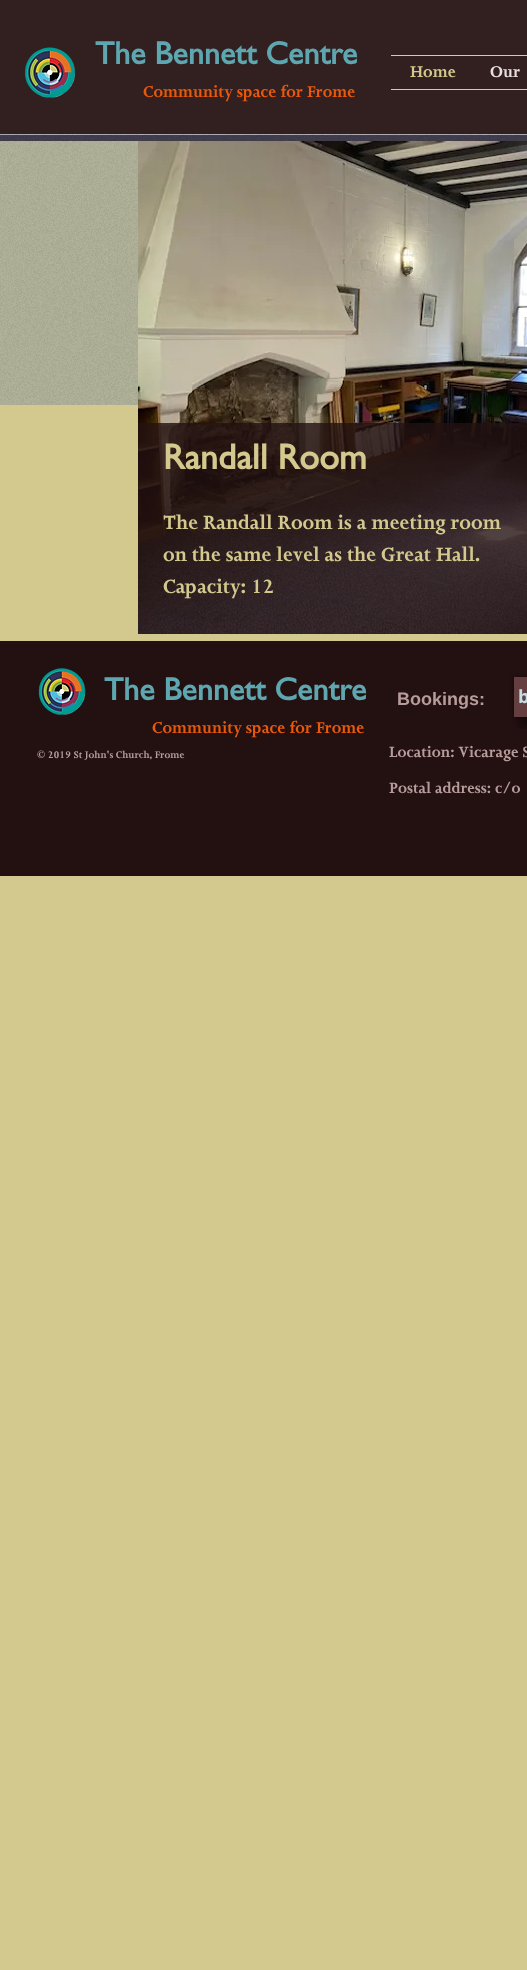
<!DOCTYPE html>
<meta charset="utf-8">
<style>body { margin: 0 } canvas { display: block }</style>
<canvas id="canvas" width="527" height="1970"></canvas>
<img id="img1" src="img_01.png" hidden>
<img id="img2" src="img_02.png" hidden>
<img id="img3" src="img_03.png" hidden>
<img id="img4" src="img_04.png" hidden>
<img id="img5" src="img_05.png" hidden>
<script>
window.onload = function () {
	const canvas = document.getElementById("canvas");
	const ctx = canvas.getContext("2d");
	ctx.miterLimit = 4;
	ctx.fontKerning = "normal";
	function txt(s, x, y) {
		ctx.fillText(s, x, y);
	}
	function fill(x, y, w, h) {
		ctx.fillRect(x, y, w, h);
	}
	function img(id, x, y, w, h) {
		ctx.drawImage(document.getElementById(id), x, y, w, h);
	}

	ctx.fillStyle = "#D3C88D";
	fill(0, 0, 527, 1970);
	ctx.fillStyle = "#321F1F";
	fill(0, 0, 527, 134);
	ctx.fillStyle = "#413C4C";
	fill(0, 135, 527, 6);
	img("img1", 25, 47, 50, 51);
	ctx.fillStyle = "#CACACA";
	fill(391, 55, 136, 1);
	fill(391, 89, 136, 1);
	ctx.fillStyle = "#B1AFB6";
	fill(0, 134, 527, 1);
	ctx.fillStyle = "#B1B299";
	fill(0, 141, 138, 264);
	img("img2", 0, 134, 527, 271);
	img("img3", 138, 141, 389, 493);
	ctx.fillStyle = "rgba(35, 17, 17, 0.8)";
	fill(138, 423, 389, 211);
	ctx.fillStyle = "#231111";
	fill(0, 641, 527, 235);
	img("img4", 38, 668, 48, 47);
	img("img5", 516, 717, 11, 12);
	ctx.fillStyle = "rgba(0, 0, 0, 0.6)";
	ctx.filter = "blur(2px)";
	ctx.beginPath();
	ctx.rect(514, 678, 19, 40);
	ctx.fill();
	ctx.filter = "none";
	ctx.fillStyle = "#653F3F";
	fill(514, 677, 13, 40);
	ctx.font = "bold 32px Gill Sans";
	ctx.fillStyle = "#5EA6B0";
	txt("The Bennett Centre", 95, 64);
	ctx.font = "bold 18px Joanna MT";
	ctx.fillStyle = "#E8590C";
	txt("Community space for Frome", 143, 97);
	ctx.fillStyle = "#D3C88D";
	txt("Home", 410, 77);
	ctx.fillStyle = "#E8DFDF";
	txt("Our", 490, 77);
	ctx.font = "bold 36px Gill Sans";
	ctx.fillStyle = "#D3C88D";
	txt("Randall Room", 163, 469);
	ctx.font = "bold 22px Joanna MT";
	txt("The Randall Room is a meeting room", 163, 529);
	txt("on the same level as the Great Hall.", 163, 561);
	txt("Capacity: 12", 163, 593);
	ctx.font = "bold 32px Gill Sans";
	ctx.fillStyle = "#5EA6B0";
	txt("The Bennett Centre", 104, 700);
	ctx.font = "bold 18px Joanna MT";
	ctx.fillStyle = "#E8590C";
	txt("Community space for Frome", 152, 733);
	ctx.font = "bold 18px Liberation Sans";
	ctx.fillStyle = "#B89C9C";
	txt("Bookings:", 397, 705);
	ctx.font = "bold 18px Open Sans";
	ctx.fillStyle = "#C1E0E5";
	txt("b", 518, 703);
	ctx.font = "bold 11px Joanna MT";
	ctx.fillStyle = "#B89C9C";
	txt("© 2019 St John's Church, Frome", 37, 758);
	ctx.font = "bold 17px Joanna MT";
	txt("Location: Vicarage S", 389, 757);
	txt("Postal address: c/o", 389, 793);
};
</script>
